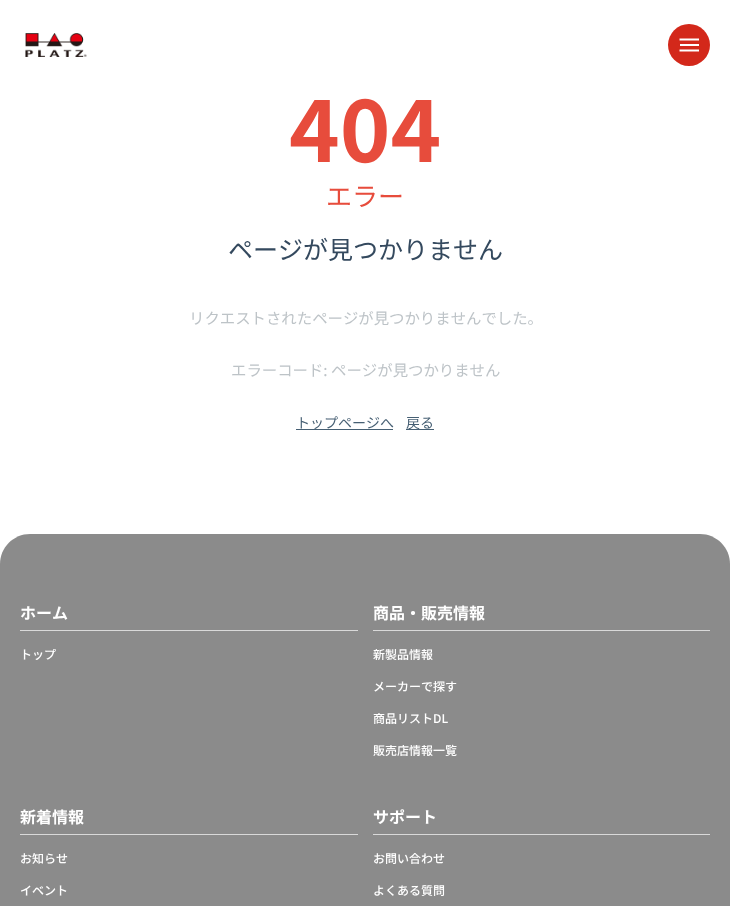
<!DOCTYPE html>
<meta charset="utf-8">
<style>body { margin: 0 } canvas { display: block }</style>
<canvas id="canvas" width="730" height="906"></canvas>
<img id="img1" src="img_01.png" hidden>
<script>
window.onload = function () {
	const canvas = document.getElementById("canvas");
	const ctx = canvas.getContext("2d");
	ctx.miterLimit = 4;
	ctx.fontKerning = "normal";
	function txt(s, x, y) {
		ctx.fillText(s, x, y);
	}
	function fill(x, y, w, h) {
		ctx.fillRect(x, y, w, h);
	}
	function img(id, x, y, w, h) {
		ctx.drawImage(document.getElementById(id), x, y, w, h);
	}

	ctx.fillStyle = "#FFFFFF";
	fill(0, 0, 730, 906);
	img("img1", 25, 33, 62, 24);
	ctx.fillStyle = "#D3281A";
	ctx.beginPath();
	ctx.arc(689, 45, 21, 0, Math.PI * 2);
	ctx.fill();
	ctx.beginPath();
	ctx.moveTo(679.5, 39.5);
	ctx.lineTo(699, 39.5);
	ctx.strokeStyle = "#FFFFFF";
	ctx.lineWidth = 2;
	ctx.stroke();
	ctx.fillStyle = "#FFFFFF";
	fill(680, 44, 19, 2);
	ctx.beginPath();
	ctx.moveTo(679.5, 50.5);
	ctx.lineTo(699, 50.5);
	ctx.stroke();
	ctx.fillStyle = "#465F73";
	fill(296, 429, 97, 1);
	fill(406, 429, 28, 1);
	ctx.fillStyle = "#8B8B8B";
	ctx.beginPath();
	ctx.moveTo(30, 534);
	ctx.lineTo(700, 534);
	ctx.bezierCurveTo(716.5, 534, 730, 547.5, 730, 564);
	ctx.lineTo(730, 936);
	ctx.lineTo(0, 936);
	ctx.lineTo(0, 564);
	ctx.bezierCurveTo(0, 547.5, 13.5, 534, 30, 534);
	ctx.closePath();
	ctx.fill();
	ctx.fillStyle = "#D9D9D9";
	fill(20, 630, 338, 1);
	fill(373, 630, 337, 1);
	fill(20, 834, 338, 1);
	fill(373, 834, 337, 1);
	ctx.font = "bold 86px Noto Sans JP";
	ctx.fillStyle = "#E74C3C";
	txt("404", 289, 162);
	ctx.font = "26px Noto Sans JP";
	txt("エラー", 326, 206);
	ctx.font = "25px Noto Sans JP";
	ctx.fillStyle = "#34495E";
	txt("ページが見つかりません", 228, 259);
	ctx.font = "15.4px Noto Sans JP";
	ctx.fillStyle = "#BDC3C7";
	txt("リクエストされたページが見つかりませんでした。", 189, 324);
	txt("エラーコード: ページが見つかりません", 231, 376);
	ctx.font = "14px Noto Sans JP";
	ctx.fillStyle = "#465F73";
	txt("トップページへ", 296, 428);
	txt("戻る", 406, 428);
	ctx.font = "bold 16px Noto Sans JP";
	ctx.fillStyle = "#FFFFFF";
	txt("ホーム", 20, 619);
	ctx.font = "500 12px Noto Sans JP";
	txt("トップ", 20, 659);
	ctx.font = "bold 16px Noto Sans JP";
	txt("商品・販売情報", 373, 619);
	ctx.font = "500 12px Noto Sans JP";
	txt("新製品情報", 373, 659);
	txt("メーカーで探す", 373, 691);
	txt("商品リストDL", 373, 723);
	txt("販売店情報一覧", 373, 755);
	ctx.font = "bold 16px Noto Sans JP";
	txt("新着情報", 20, 823);
	ctx.font = "500 12px Noto Sans JP";
	txt("お知らせ", 20, 863);
	txt("イベント", 20, 895);
	ctx.font = "bold 16px Noto Sans JP";
	txt("サポート", 373, 823);
	ctx.font = "500 12px Noto Sans JP";
	txt("お問い合わせ", 373, 863);
	txt("よくある質問", 373, 895);
};
</script>
